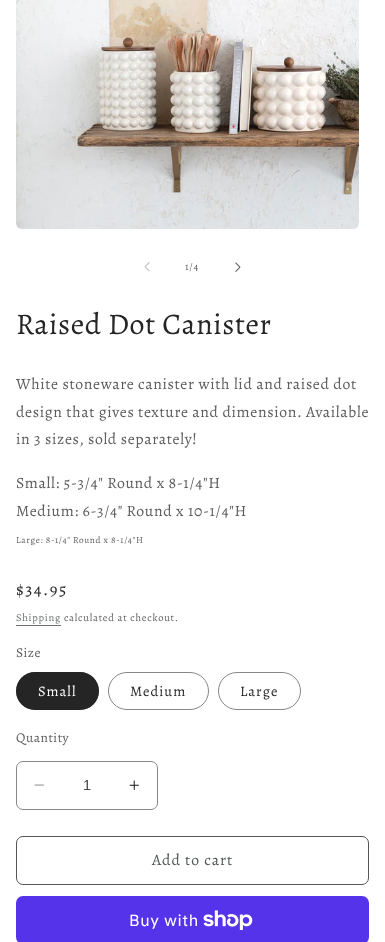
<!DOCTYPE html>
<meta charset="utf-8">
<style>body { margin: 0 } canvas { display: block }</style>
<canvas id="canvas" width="385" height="942"></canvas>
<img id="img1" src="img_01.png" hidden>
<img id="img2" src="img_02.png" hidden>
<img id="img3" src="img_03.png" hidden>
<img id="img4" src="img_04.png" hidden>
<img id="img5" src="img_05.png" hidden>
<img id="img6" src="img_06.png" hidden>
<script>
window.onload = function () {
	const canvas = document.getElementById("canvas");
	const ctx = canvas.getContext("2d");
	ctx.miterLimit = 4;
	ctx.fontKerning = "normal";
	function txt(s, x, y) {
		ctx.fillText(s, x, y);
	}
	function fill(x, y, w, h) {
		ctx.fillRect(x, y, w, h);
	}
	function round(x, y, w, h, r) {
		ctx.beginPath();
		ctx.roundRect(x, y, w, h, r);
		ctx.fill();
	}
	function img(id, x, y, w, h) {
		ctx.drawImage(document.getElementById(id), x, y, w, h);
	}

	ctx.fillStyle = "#FFFFFF";
	fill(0, 0, 385, 942);
	img("img1", 16, 0, 343, 229);
	img("img2", 144, 262, 6, 10);
	img("img3", 235, 262, 6, 10);
	ctx.fillStyle = "#6A6F6F";
	fill(16, 625, 45, 1);
	ctx.fillStyle = "#252525";
	round(16, 672, 83, 38, 19);
	ctx.beginPath();
	ctx.roundRect(16.5, 672.5, 82, 37, 18.5);
	ctx.strokeStyle = "rgba(37, 37, 37, 0.55)";
	ctx.stroke();
	ctx.beginPath();
	ctx.roundRect(108.5, 672.5, 100, 37, 18.5);
	ctx.strokeStyle = "#878787";
	ctx.stroke();
	ctx.beginPath();
	ctx.roundRect(218.5, 672.5, 82, 37, 18.5);
	ctx.stroke();
	img("img4", 34, 784, 10, 2);
	img("img5", 129, 780, 10, 10);
	ctx.beginPath();
	ctx.roundRect(16.5, 761.5, 141, 48, 6.5);
	ctx.stroke();
	ctx.beginPath();
	ctx.roundRect(16.5, 836.5, 352, 48, 6.5);
	ctx.strokeStyle = "#505655";
	ctx.stroke();
	ctx.fillStyle = "#5433EB";
	round(16, 896, 353, 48, 7);
	img("img6", 203, 910, 50, 20);
	ctx.letterSpacing = "0.75px";
	ctx.font = "10.5px Alegreya";
	ctx.fillStyle = "#5C5C5C";
	txt("1/4", 185, 270);
	ctx.letterSpacing = "0.6px";
	ctx.font = "30px Alegreya";
	ctx.fillStyle = "#252525";
	txt("Raised Dot Canister", 16, 334);
	ctx.letterSpacing = "0.63px";
	ctx.font = "15.75px Alegreya";
	ctx.fillStyle = "#5C5C5C";
	txt("White stoneware canister with lid and raised dot", 16, 389);
	txt("design that gives texture and dimension. Available", 16, 417);
	txt("in 3 sizes, sold separately!", 16, 444);
	txt("Small: 5-3/4\" Round x 8-1/4\"H", 16, 488);
	txt("Medium: 6-3/4\" Round x 10-1/4\"H", 16, 516);
	ctx.font = "9.25px Alegreya";
	txt("Large: 8-1/4\" Round x 8-1/4\"H", 16, 543);
	ctx.letterSpacing = "1.5px";
	ctx.font = "17px Alegreya";
	ctx.fillStyle = "#252525";
	txt("$34.95", 16, 595);
	ctx.letterSpacing = "0.75px";
	ctx.font = "10.5px Alegreya";
	ctx.fillStyle = "#6A6F6F";
	txt("Shipping", 16, 621);
	ctx.fillStyle = "#5C5C5C";
	txt("calculated at checkout.", 64, 621);
	ctx.letterSpacing = "0.5px";
	ctx.font = "13.5px Alegreya";
	txt("Size", 16, 657);
	ctx.letterSpacing = "1px";
	ctx.font = "14.5px Alegreya";
	ctx.fillStyle = "#FFFFFF";
	txt("Small", 38, 696);
	ctx.fillStyle = "#252525";
	txt("Medium", 130, 696);
	txt("Large", 240, 696);
	ctx.letterSpacing = "0.5px";
	ctx.font = "13.5px Alegreya";
	ctx.fillStyle = "#5C5C5C";
	txt("Quantity", 16, 742);
	ctx.letterSpacing = "0px";
	ctx.font = "14.5px Liberation Sans";
	ctx.fillStyle = "#464646";
	txt("1", 83, 790);
	ctx.letterSpacing = "1px";
	ctx.font = "15.75px Alegreya";
	ctx.fillStyle = "#505655";
	txt("Add to cart", 152, 865);
	ctx.letterSpacing = "0.63px";
	ctx.font = "16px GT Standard";
	ctx.fillStyle = "#FFFFFF";
	txt("Buy with", 129, 926);
};
</script>
